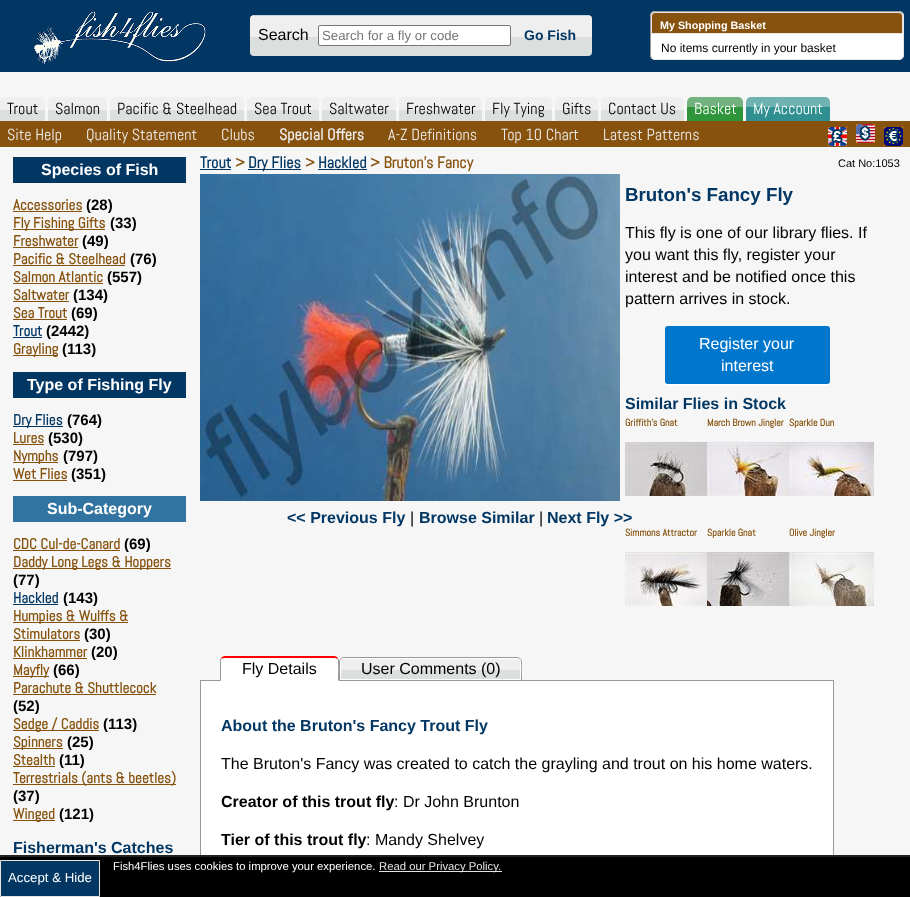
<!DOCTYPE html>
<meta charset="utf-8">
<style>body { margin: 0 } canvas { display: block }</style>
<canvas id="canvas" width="910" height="897"></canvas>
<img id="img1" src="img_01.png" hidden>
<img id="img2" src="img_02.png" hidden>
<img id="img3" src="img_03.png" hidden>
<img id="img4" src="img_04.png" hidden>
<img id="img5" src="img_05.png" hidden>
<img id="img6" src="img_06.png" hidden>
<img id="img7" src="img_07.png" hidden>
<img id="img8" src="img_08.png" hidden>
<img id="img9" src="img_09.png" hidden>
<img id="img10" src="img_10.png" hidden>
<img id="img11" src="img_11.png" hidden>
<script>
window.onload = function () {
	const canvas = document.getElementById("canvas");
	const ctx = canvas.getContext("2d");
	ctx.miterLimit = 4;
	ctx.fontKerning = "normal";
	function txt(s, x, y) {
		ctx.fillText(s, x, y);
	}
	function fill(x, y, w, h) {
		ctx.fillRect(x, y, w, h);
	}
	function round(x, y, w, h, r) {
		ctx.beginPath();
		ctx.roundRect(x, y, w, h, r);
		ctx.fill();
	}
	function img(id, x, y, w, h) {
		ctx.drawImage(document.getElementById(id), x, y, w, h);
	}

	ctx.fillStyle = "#F6F6F6";
	fill(0, 0, 910, 897);
	ctx.fillStyle = "#023763";
	fill(0, 0, 910, 72);
	img("img1", 33, 11, 174, 54);
	ctx.save();
	ctx.beginPath();
	ctx.roundRect(250, 15, 342, 41, 4);
	ctx.clip();
	ctx.fillStyle = "#EFEFEF";
	fill(250, 16, 342, 21);
	ctx.restore();
	ctx.fillStyle = "#DBDFDE";
	ctx.beginPath();
	ctx.roundRect(250, 37, 342, 19, [0, 0, 4, 4]);
	ctx.fill();
	ctx.fillStyle = "#C3D6DF";
	fill(252, 15, 338, 1);
	ctx.fillStyle = "#FFFFFF";
	ctx.beginPath();
	ctx.roundRect(318.5, 25.5, 192, 20, 1.5);
	ctx.fill();
	ctx.strokeStyle = "#767676";
	ctx.stroke();
	round(650, 11, 254, 49, 5);
	ctx.beginPath();
	ctx.moveTo(902, 13);
	ctx.bezierCurveTo(903, 13.5, 903.5, 15, 903.5, 16);
	ctx.lineTo(903.5, 55);
	ctx.bezierCurveTo(903.5, 56, 903, 57.5, 902, 58);
	ctx.bezierCurveTo(901.5, 59, 900, 59.5, 899, 59.5);
	ctx.lineTo(655, 59.5);
	ctx.bezierCurveTo(654, 59.5, 652.5, 59, 652, 58);
	ctx.strokeStyle = "#E6E6E6";
	ctx.stroke();
	ctx.beginPath();
	ctx.moveTo(652, 58);
	ctx.bezierCurveTo(651, 57.5, 650.5, 56, 650.5, 55);
	ctx.lineTo(650.5, 16);
	ctx.bezierCurveTo(650.5, 15, 651, 13.5, 652, 13);
	ctx.bezierCurveTo(652.5, 12, 654, 11.5, 655, 11.5);
	ctx.lineTo(899, 11.5);
	ctx.bezierCurveTo(900, 11.5, 901.5, 12, 902, 13);
	ctx.strokeStyle = "#999999";
	ctx.stroke();
	ctx.fillStyle = "#86520D";
	ctx.beginPath();
	ctx.roundRect(651.5, 12.5, 251, 21, [3.5, 3.5, 0, 0]);
	ctx.fill();
	ctx.strokeStyle = "#E6E6E6";
	ctx.stroke();
	ctx.fillStyle = "#EFEFEF";
	ctx.beginPath();
	ctx.roundRect(0, 97, 45, 13, [5, 5, 0, 0]);
	ctx.fill();
	ctx.fillStyle = "#DBDFDE";
	fill(0, 110, 45, 11);
	ctx.fillStyle = "#EFEFEF";
	ctx.beginPath();
	ctx.roundRect(48, 97, 59, 13, [5, 5, 0, 0]);
	ctx.fill();
	ctx.fillStyle = "#DBDFDE";
	fill(48, 110, 59, 11);
	ctx.fillStyle = "#EFEFEF";
	ctx.beginPath();
	ctx.roundRect(110, 97, 134, 13, [5, 5, 0, 0]);
	ctx.fill();
	ctx.fillStyle = "#DBDFDE";
	fill(110, 110, 134, 11);
	ctx.fillStyle = "#EFEFEF";
	ctx.beginPath();
	ctx.roundRect(247, 97, 72, 13, [5, 5, 0, 0]);
	ctx.fill();
	ctx.fillStyle = "#DBDFDE";
	fill(247, 110, 72, 11);
	ctx.fillStyle = "#EFEFEF";
	ctx.beginPath();
	ctx.roundRect(322, 97, 74, 13, [5, 5, 0, 0]);
	ctx.fill();
	ctx.fillStyle = "#DBDFDE";
	fill(322, 110, 74, 11);
	ctx.fillStyle = "#EFEFEF";
	ctx.beginPath();
	ctx.roundRect(399, 97, 83, 13, [5, 5, 0, 0]);
	ctx.fill();
	ctx.fillStyle = "#DBDFDE";
	fill(399, 110, 83, 11);
	ctx.fillStyle = "#EFEFEF";
	ctx.beginPath();
	ctx.roundRect(485, 97, 67, 13, [5, 5, 0, 0]);
	ctx.fill();
	ctx.fillStyle = "#DBDFDE";
	fill(485, 110, 67, 11);
	ctx.fillStyle = "#EFEFEF";
	ctx.beginPath();
	ctx.roundRect(555, 97, 43, 13, [5, 5, 0, 0]);
	ctx.fill();
	ctx.fillStyle = "#DBDFDE";
	fill(555, 110, 43, 11);
	ctx.fillStyle = "#EFEFEF";
	ctx.beginPath();
	ctx.roundRect(601, 97, 83, 13, [5, 5, 0, 0]);
	ctx.fill();
	ctx.fillStyle = "#DBDFDE";
	fill(601, 110, 83, 11);
	ctx.fillStyle = "#72B27E";
	ctx.beginPath();
	ctx.roundRect(687, 97, 56, 10, [5, 5, 0, 0]);
	ctx.fill();
	ctx.fillStyle = "#2E953A";
	fill(687, 107, 56, 14);
	ctx.fillStyle = "#6EB2B1";
	ctx.beginPath();
	ctx.roundRect(746, 97, 84, 10, [5, 5, 0, 0]);
	ctx.fill();
	ctx.fillStyle = "#308F91";
	fill(746, 107, 84, 14);
	ctx.fillStyle = "#86520D";
	fill(0, 121, 910, 26);
	img("img2", 828, 127, 19, 19);
	img("img3", 856, 124, 19, 19);
	img("img4", 884, 127, 19, 19);
	ctx.fillStyle = "#023763";
	fill(13, 157, 173, 26);
	ctx.fillStyle = "#86520D";
	fill(13, 211, 69, 1);
	fill(13, 229, 92, 1);
	fill(13, 247, 65, 1);
	fill(13, 265, 112, 1);
	fill(13, 283, 90, 1);
	fill(13, 301, 56, 1);
	fill(13, 319, 54, 1);
	ctx.fillStyle = "#023763";
	fill(13, 337, 29, 1);
	ctx.fillStyle = "#86520D";
	fill(13, 355, 45, 1);
	ctx.fillStyle = "#023763";
	fill(13, 372, 173, 26);
	fill(13, 426, 50, 1);
	ctx.fillStyle = "#86520D";
	fill(13, 444, 31, 1);
	fill(13, 462, 45, 1);
	fill(13, 480, 54, 1);
	ctx.fillStyle = "#3174A1";
	fill(13, 496, 173, 26);
	ctx.fillStyle = "#86520D";
	fill(13, 550, 107, 1);
	fill(13, 568, 158, 1);
	ctx.fillStyle = "#023763";
	fill(13, 604, 45, 1);
	ctx.fillStyle = "#86520D";
	fill(13, 622, 115, 1);
	fill(13, 640, 67, 1);
	fill(13, 658, 74, 1);
	fill(13, 676, 36, 1);
	fill(13, 694, 143, 1);
	fill(13, 730, 86, 1);
	fill(13, 748, 50, 1);
	fill(13, 766, 42, 1);
	fill(13, 784, 163, 1);
	fill(13, 820, 42, 1);
	ctx.fillStyle = "#023763";
	fill(200, 169, 31, 1);
	fill(248, 169, 53, 1);
	fill(318, 169, 49, 1);
	img("img5", 200, 174, 420, 327);
	ctx.fillStyle = "#FFFFFF";
	ctx.beginPath();
	ctx.moveTo(665, 381);
	ctx.lineTo(665, 383);
	ctx.bezierCurveTo(665, 385, 666, 386, 668, 386);
	ctx.lineTo(827, 386);
	ctx.bezierCurveTo(829, 386, 830, 385, 830, 383);
	ctx.lineTo(830, 381);
	ctx.bezierCurveTo(830, 383, 829, 384, 827, 384);
	ctx.lineTo(668, 384);
	ctx.bezierCurveTo(666, 384, 665, 383, 665, 381);
	ctx.closePath();
	ctx.fill();
	ctx.fillStyle = "#0077CC";
	round(665, 326, 165, 58, 3);
	img("img6", 625, 442, 82, 54);
	img("img7", 707, 442, 82, 54);
	img("img8", 789, 442, 85, 54);
	img("img9", 625, 552, 82, 54);
	img("img10", 707, 552, 82, 54);
	img("img11", 789, 552, 85, 54);
	ctx.fillStyle = "#FFFFFF";
	ctx.beginPath();
	ctx.moveTo(225, 658);
	ctx.lineTo(334, 658);
	ctx.bezierCurveTo(336, 658, 338, 659, 338, 661);
	ctx.lineTo(338, 680);
	ctx.lineTo(221, 680);
	ctx.lineTo(221, 661);
	ctx.bezierCurveTo(221, 659, 223, 658, 225, 658);
	ctx.closePath();
	ctx.fill();
	ctx.fillStyle = "#FF0000";
	ctx.beginPath();
	ctx.moveTo(225, 656);
	ctx.bezierCurveTo(223, 656, 222, 657, 221, 658);
	ctx.lineTo(222, 659);
	ctx.bezierCurveTo(222, 658, 224, 658, 225, 658);
	ctx.lineTo(334, 658);
	ctx.bezierCurveTo(335, 658, 337, 658, 337, 659);
	ctx.lineTo(338, 658);
	ctx.bezierCurveTo(337, 657, 336, 656, 334, 656);
	ctx.closePath();
	ctx.fill();
	ctx.fillStyle = "#FFFFFF";
	fill(201, 681, 632, 174);
	ctx.strokeStyle = "#999999";
	ctx.strokeRect(200.5, 680.5, 633, 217);
	ctx.fillStyle = "#999999";
	ctx.beginPath();
	ctx.moveTo(339, 681);
	ctx.lineTo(339, 661);
	ctx.bezierCurveTo(339, 660, 338.5, 658.5, 338, 658);
	ctx.lineTo(337.5, 659.5);
	ctx.bezierCurveTo(338, 659.5, 338, 660.5, 338, 661);
	ctx.lineTo(338, 680);
	ctx.closePath();
	ctx.fill();
	ctx.fillStyle = "#FFFFFF";
	ctx.beginPath();
	ctx.moveTo(339, 681);
	ctx.lineTo(338, 680);
	ctx.lineTo(221, 680);
	ctx.lineTo(220, 681);
	ctx.closePath();
	ctx.fill();
	ctx.fillStyle = "#999999";
	ctx.beginPath();
	ctx.moveTo(220, 681);
	ctx.lineTo(221, 680);
	ctx.lineTo(221, 661);
	ctx.bezierCurveTo(221, 660.5, 221, 659.5, 221.5, 659.5);
	ctx.lineTo(221, 658);
	ctx.bezierCurveTo(220.5, 658.5, 220, 660, 220, 661);
	ctx.closePath();
	ctx.fill();
	ctx.fillStyle = "#FFFFFF";
	ctx.beginPath();
	ctx.moveTo(221, 661);
	ctx.lineTo(221, 680);
	ctx.lineTo(338, 680);
	ctx.bezierCurveTo(338, 677, 339, 661, 337, 659);
	ctx.lineTo(337, 679);
	ctx.lineTo(222, 679);
	ctx.lineTo(222, 659);
	ctx.closePath();
	ctx.moveTo(225, 658);
	ctx.lineTo(222, 659);
	ctx.lineTo(337, 659);
	ctx.lineTo(334, 658);
	ctx.closePath();
	ctx.fill("evenodd");
	ctx.save();
	ctx.beginPath();
	ctx.roundRect(339, 657, 183, 24, [5, 5, 0, 0]);
	ctx.clip();
	ctx.fillStyle = "#EFEFEF";
	fill(339, 658, 183, 12);
	ctx.restore();
	ctx.fillStyle = "#DBDFDE";
	fill(341, 670, 179, 9);
	ctx.beginPath();
	ctx.roundRect(339.5, 657.5, 182, 23, [4.5, 4.5, 0, 0]);
	ctx.stroke();
	ctx.fillStyle = "#FFFFFF";
	ctx.beginPath();
	ctx.moveTo(340, 662);
	ctx.lineTo(340, 680);
	ctx.lineTo(521, 680);
	ctx.bezierCurveTo(521, 676, 522, 662, 520, 659);
	ctx.lineTo(520, 679);
	ctx.lineTo(341, 679);
	ctx.lineTo(341, 659);
	ctx.closePath();
	ctx.moveTo(344, 658);
	ctx.lineTo(341, 659);
	ctx.lineTo(520, 659);
	ctx.lineTo(517, 658);
	ctx.closePath();
	ctx.fill("evenodd");
	ctx.fillStyle = "#000000";
	fill(0, 857, 910, 40);
	ctx.fillStyle = "#222222";
	fill(0, 855, 910, 2);
	ctx.fillStyle = "#E4E4E4";
	fill(379, 871, 123, 1);
	ctx.fillStyle = "#023763";
	ctx.beginPath();
	ctx.rect(0.5, 860.5, 99, 36);
	ctx.fill();
	ctx.strokeStyle = "#E4E4E4";
	ctx.stroke();
	ctx.font = "16px Liberation Sans";
	ctx.fillStyle = "#000000";
	txt("Search", 258, 40);
	ctx.font = "13.25px Liberation Sans";
	ctx.fillStyle = "#757575";
	txt("Search for a fly or code", 322, 40);
	ctx.font = "bold 14px Liberation Sans";
	ctx.fillStyle = "#023763";
	txt("Go Fish", 524, 40);
	ctx.font = "bold 10.75px Liberation Sans";
	ctx.fillStyle = "#FFFFFF";
	txt("My Shopping Basket", 660, 29);
	ctx.font = "12px Liberation Sans";
	ctx.fillStyle = "#000000";
	txt("No items currently in your basket", 661, 52);
	ctx.font = "16px Abel";
	txt("Trout", 7, 114);
	txt("Salmon", 55, 114);
	txt("Pacific & Steelhead", 117, 114);
	txt("Sea Trout", 254, 114);
	txt("Saltwater", 329, 114);
	txt("Freshwater", 406, 114);
	txt("Fly Tying", 492, 114);
	txt("Gifts", 562, 114);
	txt("Contact Us", 608, 114);
	ctx.fillStyle = "#FFFFFF";
	txt("Basket", 694, 114);
	txt("My Account", 753, 114);
	ctx.fillStyle = "#EEEEEE";
	txt("Site Help", 7, 140);
	txt("Quality Statement", 86, 140);
	txt("Clubs", 221, 140);
	ctx.font = "bold 16px Abel";
	txt("Special Offers", 279, 140);
	ctx.font = "16px Abel";
	txt("A-Z Definitions", 388, 140);
	txt("Top 10 Chart", 501, 140);
	txt("Latest Patterns", 603, 140);
	ctx.font = "bold 16px Liberation Sans";
	ctx.fillStyle = "#FFFFFF";
	txt("Species of Fish", 41, 175);
	ctx.font = "bold 15px Abel";
	ctx.fillStyle = "#86520D";
	txt("Accessories", 13, 210);
	ctx.font = "bold 15px Liberation Sans";
	ctx.fillStyle = "#000000";
	txt("(28)", 86, 210);
	ctx.font = "bold 15px Abel";
	ctx.fillStyle = "#86520D";
	txt("Fly Fishing Gifts", 13, 228);
	ctx.font = "bold 15px Liberation Sans";
	ctx.fillStyle = "#000000";
	txt("(33)", 110, 228);
	ctx.font = "bold 15px Abel";
	ctx.fillStyle = "#86520D";
	txt("Freshwater", 13, 246);
	ctx.font = "bold 15px Liberation Sans";
	ctx.fillStyle = "#000000";
	txt("(49)", 82, 246);
	ctx.font = "bold 15px Abel";
	ctx.fillStyle = "#86520D";
	txt("Pacific & Steelhead", 13, 264);
	ctx.font = "bold 15px Liberation Sans";
	ctx.fillStyle = "#000000";
	txt("(76)", 130, 264);
	ctx.font = "bold 15px Abel";
	ctx.fillStyle = "#86520D";
	txt("Salmon Atlantic", 13, 282);
	ctx.font = "bold 15px Liberation Sans";
	ctx.fillStyle = "#000000";
	txt("(557)", 107, 282);
	ctx.font = "bold 15px Abel";
	ctx.fillStyle = "#86520D";
	txt("Saltwater", 13, 300);
	ctx.font = "bold 15px Liberation Sans";
	ctx.fillStyle = "#000000";
	txt("(134)", 73, 300);
	ctx.font = "bold 15px Abel";
	ctx.fillStyle = "#86520D";
	txt("Sea Trout", 13, 318);
	ctx.font = "bold 15px Liberation Sans";
	ctx.fillStyle = "#000000";
	txt("(69)", 71, 318);
	ctx.font = "bold 15px Abel";
	ctx.fillStyle = "#023763";
	txt("Trout", 13, 336);
	ctx.font = "bold 15px Liberation Sans";
	ctx.fillStyle = "#000000";
	txt("(2442)", 46, 336);
	ctx.font = "bold 15px Abel";
	ctx.fillStyle = "#86520D";
	txt("Grayling", 13, 354);
	ctx.font = "bold 15px Liberation Sans";
	ctx.fillStyle = "#000000";
	txt("(113)", 62, 354);
	ctx.font = "bold 16px Liberation Sans";
	ctx.fillStyle = "#FFFFFF";
	txt("Type of Fishing Fly", 27, 390);
	ctx.font = "bold 15px Abel";
	ctx.fillStyle = "#023763";
	txt("Dry Flies", 13, 425);
	ctx.font = "bold 15px Liberation Sans";
	ctx.fillStyle = "#000000";
	txt("(764)", 67, 425);
	ctx.font = "bold 15px Abel";
	ctx.fillStyle = "#86520D";
	txt("Lures", 13, 443);
	ctx.font = "bold 15px Liberation Sans";
	ctx.fillStyle = "#000000";
	txt("(530)", 48, 443);
	ctx.font = "bold 15px Abel";
	ctx.fillStyle = "#86520D";
	txt("Nymphs", 13, 461);
	ctx.font = "bold 15px Liberation Sans";
	ctx.fillStyle = "#000000";
	txt("(797)", 63, 461);
	ctx.font = "bold 15px Abel";
	ctx.fillStyle = "#86520D";
	txt("Wet Flies", 13, 479);
	ctx.font = "bold 15px Liberation Sans";
	ctx.fillStyle = "#000000";
	txt("(351)", 71, 479);
	ctx.font = "bold 16px Liberation Sans";
	ctx.fillStyle = "#FFFFFF";
	txt("Sub-Category", 47, 514);
	ctx.font = "bold 15px Abel";
	ctx.fillStyle = "#86520D";
	txt("CDC Cul-de-Canard", 13, 549);
	ctx.font = "bold 15px Liberation Sans";
	ctx.fillStyle = "#000000";
	txt("(69)", 124, 549);
	ctx.font = "bold 15px Abel";
	ctx.fillStyle = "#86520D";
	txt("Daddy Long Legs & Hoppers", 13, 567);
	ctx.font = "bold 15px Liberation Sans";
	ctx.fillStyle = "#000000";
	txt("(77)", 13, 585);
	ctx.font = "bold 15px Abel";
	ctx.fillStyle = "#023763";
	txt("Hackled", 13, 603);
	ctx.font = "bold 15px Liberation Sans";
	ctx.fillStyle = "#000000";
	txt("(143)", 63, 603);
	ctx.font = "bold 15px Abel";
	ctx.fillStyle = "#86520D";
	txt("Humpies & Wulffs &", 13, 621);
	txt("Stimulators", 13, 639);
	ctx.font = "bold 15px Liberation Sans";
	ctx.fillStyle = "#000000";
	txt("(30)", 84, 639);
	ctx.font = "bold 15px Abel";
	ctx.fillStyle = "#86520D";
	txt("Klinkhammer", 13, 657);
	ctx.font = "bold 15px Liberation Sans";
	ctx.fillStyle = "#000000";
	txt("(20)", 91, 657);
	ctx.font = "bold 15px Abel";
	ctx.fillStyle = "#86520D";
	txt("Mayfly", 13, 675);
	ctx.font = "bold 15px Liberation Sans";
	ctx.fillStyle = "#000000";
	txt("(66)", 53, 675);
	ctx.font = "bold 15px Abel";
	ctx.fillStyle = "#86520D";
	txt("Parachute & Shuttlecock", 13, 693);
	ctx.font = "bold 15px Liberation Sans";
	ctx.fillStyle = "#000000";
	txt("(52)", 13, 711);
	ctx.font = "bold 15px Abel";
	ctx.fillStyle = "#86520D";
	txt("Sedge / Caddis", 13, 729);
	ctx.font = "bold 15px Liberation Sans";
	ctx.fillStyle = "#000000";
	txt("(113)", 103, 729);
	ctx.font = "bold 15px Abel";
	ctx.fillStyle = "#86520D";
	txt("Spinners", 13, 747);
	ctx.font = "bold 15px Liberation Sans";
	ctx.fillStyle = "#000000";
	txt("(25)", 67, 747);
	ctx.font = "bold 15px Abel";
	ctx.fillStyle = "#86520D";
	txt("Stealth", 13, 765);
	ctx.font = "bold 15px Liberation Sans";
	ctx.fillStyle = "#000000";
	txt("(11)", 59, 765);
	ctx.font = "bold 15px Abel";
	ctx.fillStyle = "#86520D";
	txt("Terrestrials (ants & beetles)", 13, 783);
	ctx.font = "bold 15px Liberation Sans";
	ctx.fillStyle = "#000000";
	txt("(37)", 13, 801);
	ctx.font = "bold 15px Abel";
	ctx.fillStyle = "#86520D";
	txt("Winged", 13, 819);
	ctx.font = "bold 15px Liberation Sans";
	ctx.fillStyle = "#000000";
	txt("(121)", 59, 819);
	ctx.font = "bold 16px Liberation Sans";
	ctx.fillStyle = "#023763";
	txt("Fisherman's Catches", 13, 853);
	ctx.font = "bold 16px Abel";
	txt("Trout", 200, 168);
	ctx.fillStyle = "#86520D";
	txt(">", 235, 168);
	ctx.fillStyle = "#023763";
	txt("Dry Flies", 248, 168);
	ctx.fillStyle = "#86520D";
	txt(">", 305, 168);
	ctx.fillStyle = "#023763";
	txt("Hackled", 318, 168);
	ctx.fillStyle = "#86520D";
	txt("> Bruton's Fancy", 370, 168);
	ctx.font = "11px Liberation Sans";
	ctx.fillStyle = "#000000";
	txt("Cat No:1053", 838, 167);
	ctx.font = "bold 16px Liberation Sans";
	ctx.fillStyle = "#023763";
	txt("<< Previous Fly", 287, 523);
	ctx.font = "16px Liberation Sans";
	ctx.fillStyle = "#000000";
	txt("|", 410, 523);
	ctx.font = "bold 16px Liberation Sans";
	ctx.fillStyle = "#023763";
	txt("Browse Similar", 419, 523);
	ctx.font = "16px Liberation Sans";
	ctx.fillStyle = "#000000";
	txt("|", 539, 523);
	ctx.font = "bold 16px Liberation Sans";
	ctx.fillStyle = "#023763";
	txt("Next Fly >>", 547, 523);
	ctx.font = "bold 18.75px Liberation Sans";
	txt("Bruton's Fancy Fly", 625, 201);
	ctx.font = "16px Liberation Sans";
	ctx.fillStyle = "#000000";
	txt("This fly is one of our library flies. If", 625, 238);
	txt("you want this fly, register your", 625, 260);
	txt("interest and be notified once this", 625, 282);
	txt("pattern arrives in stock.", 625, 304);
	ctx.fillStyle = "#FFFFFF";
	txt("Register your", 699, 349);
	txt("interest", 721, 371);
	ctx.font = "bold 16px Liberation Sans";
	ctx.fillStyle = "#023763";
	txt("Similar Flies in Stock", 625, 409);
	ctx.font = "bold 10px Abel";
	ctx.fillStyle = "#86520D";
	txt("Griffith's Gnat", 625, 426);
	txt("March Brown Jingler", 707, 426);
	txt("Sparkle Dun", 789, 426);
	txt("Simmons Attractor", 625, 536);
	txt("Sparkle Gnat", 707, 536);
	txt("Olive Jingler", 789, 536);
	ctx.font = "16px Liberation Sans";
	ctx.fillStyle = "#000000";
	txt("Fly Details", 242, 674);
	txt("User Comments (0)", 361, 674);
	ctx.font = "bold 16px Liberation Sans";
	ctx.fillStyle = "#023763";
	txt("About the Bruton's Fancy Trout Fly", 221, 731);
	ctx.font = "16px Liberation Sans";
	ctx.fillStyle = "#000000";
	txt("The Bruton's Fancy was created to catch the grayling and trout on his home waters.", 221, 769);
	ctx.font = "bold 16px Liberation Sans";
	txt("Creator of this trout fly", 221, 807);
	ctx.font = "16px Liberation Sans";
	txt(": Dr John Brunton", 394, 807);
	ctx.font = "bold 16px Liberation Sans";
	txt("Tier of this trout fly", 221, 845);
	ctx.font = "16px Liberation Sans";
	txt(": Mandy Shelvey", 366, 845);
	ctx.font = "11.3px Liberation Sans";
	ctx.fillStyle = "#FFFFFF";
	txt("Fish4Flies uses cookies to improve your experience.", 113, 870);
	ctx.fillStyle = "#E4E4E4";
	txt("Read our Privacy Policy.", 379, 870);
	ctx.font = "13.25px Liberation Sans";
	ctx.fillStyle = "#FFFFFF";
	txt("Accept & Hide", 8, 882);
};
</script>
